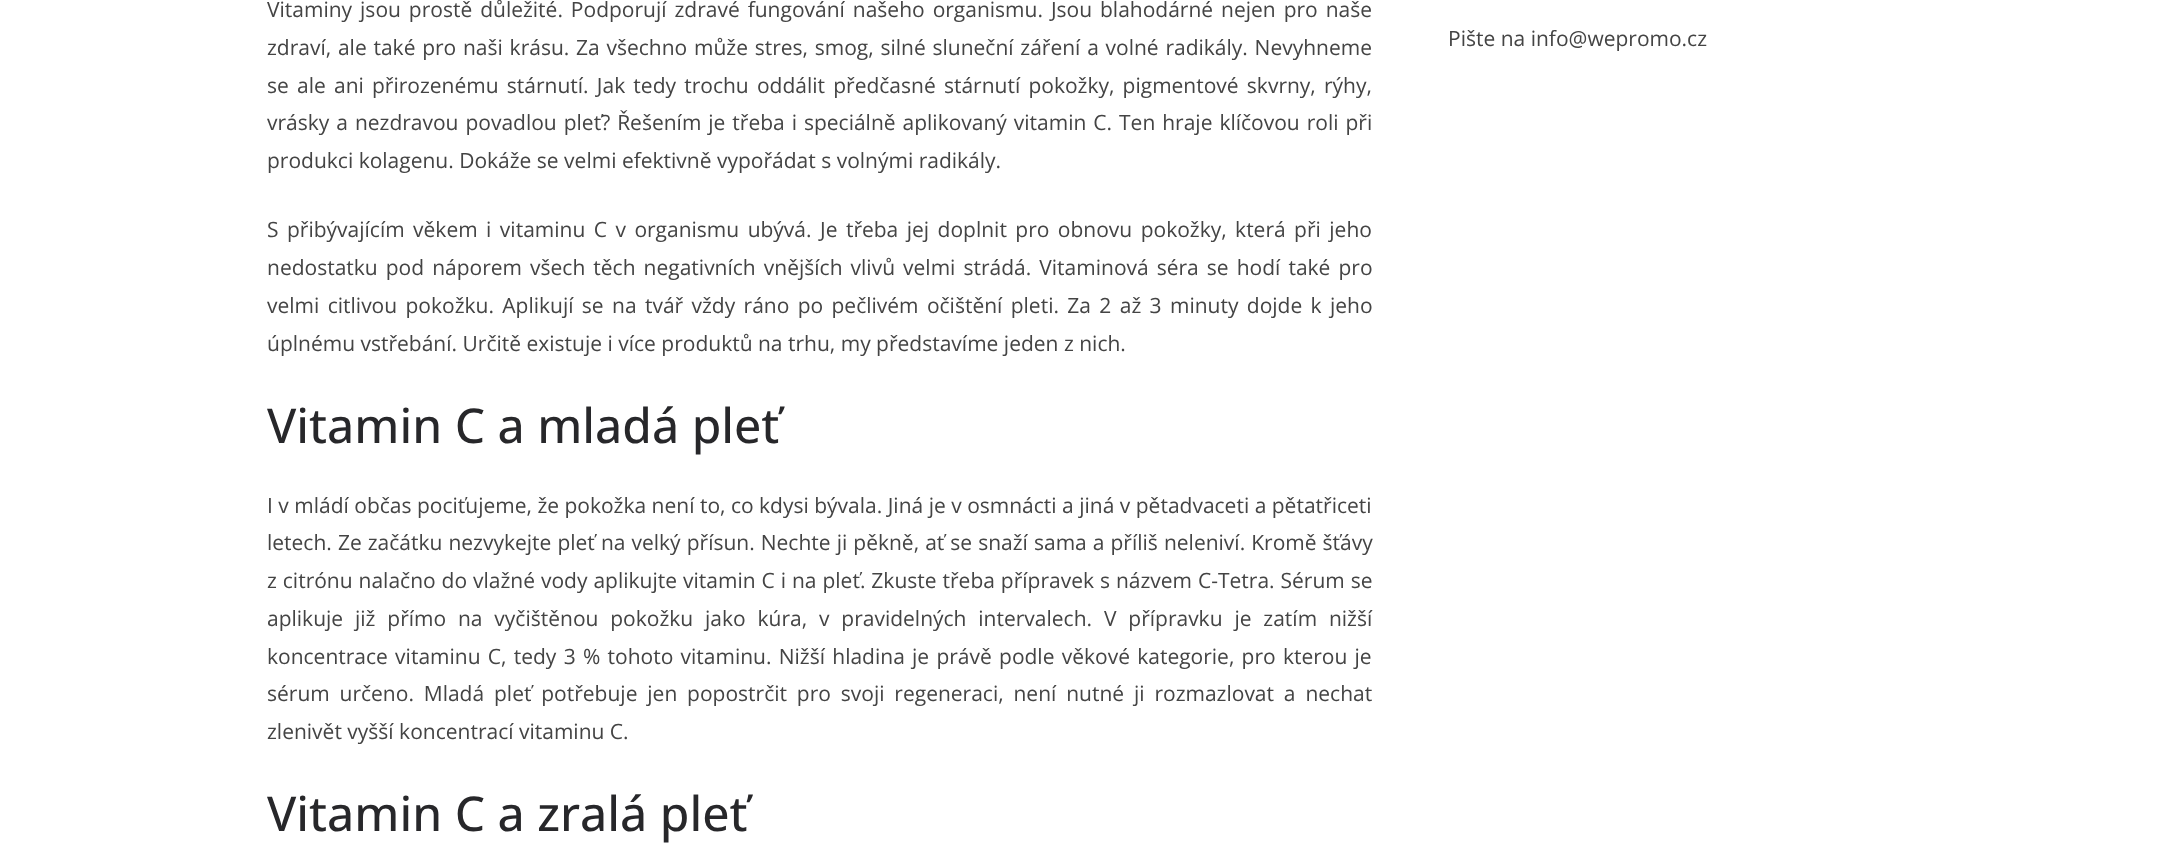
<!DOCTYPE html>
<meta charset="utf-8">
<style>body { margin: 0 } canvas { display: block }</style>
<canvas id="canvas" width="2183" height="849"></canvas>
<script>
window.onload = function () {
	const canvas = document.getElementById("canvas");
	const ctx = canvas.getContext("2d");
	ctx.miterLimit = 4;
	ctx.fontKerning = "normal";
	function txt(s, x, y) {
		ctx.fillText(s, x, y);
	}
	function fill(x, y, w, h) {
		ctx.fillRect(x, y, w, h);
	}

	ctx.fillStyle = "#FFFFFF";
	fill(0, 0, 2183, 849);
	ctx.wordSpacing = "2.5px";
	ctx.font = "21px Open Sans";
	ctx.fillStyle = "#444444";
	txt("Vitaminy jsou prostě důležité. Podporují zdravé fungování našeho organismu. Jsou blahodárné nejen pro naše", 267, 17);
	ctx.wordSpacing = "1.3px";
	txt("zdraví, ale také pro naši krásu. Za všechno může stres, smog, silné sluneční záření a volné radikály. Nevyhneme", 267, 55);
	ctx.wordSpacing = "2.75px";
	txt("se ale ani přirozenému stárnutí. Jak tedy trochu oddálit předčasné stárnutí pokožky, pigmentové skvrny, rýhy,", 267, 93);
	ctx.wordSpacing = "1.5px";
	txt("vrásky a nezdravou povadlou pleť? Řešením je třeba i speciálně aplikovaný vitamin C. Ten hraje klíčovou roli při", 267, 130);
	ctx.wordSpacing = "0px";
	txt("produkci kolagenu. Dokáže se velmi efektivně vypořádat s volnými radikály.", 267, 168);
	ctx.wordSpacing = "3px";
	txt("S přibývajícím věkem i vitaminu C v organismu ubývá. Je třeba jej doplnit pro obnovu pokožky, která při jeho", 267, 237);
	ctx.wordSpacing = "2.6px";
	txt("nedostatku pod náporem všech těch negativních vnějších vlivů velmi strádá. Vitaminová séra se hodí také pro", 267, 275);
	ctx.wordSpacing = "2.9px";
	txt("velmi citlivou pokožku. Aplikují se na tvář vždy ráno po pečlivém očištění pleti. Za 2 až 3 minuty dojde k jeho", 267, 313);
	ctx.wordSpacing = "0px";
	txt("úplnému vstřebání. Určitě existuje i více produktů na trhu, my představíme jeden z nich.", 267, 351);
	ctx.font = "500 48px Open Sans";
	ctx.fillStyle = "#27272A";
	txt("Vitamin C a mladá pleť", 267, 443);
	ctx.font = "21px Open Sans";
	ctx.fillStyle = "#444444";
	txt("I v mládí občas pociťujeme, že pokožka není to, co kdysi bývala. Jiná je v osmnácti a jiná v pětadvaceti a pětatřiceti", 267, 513);
	ctx.wordSpacing = "0.6px";
	txt("letech. Ze začátku nezvykejte pleť na velký přísun. Nechte ji pěkně, ať se snaží sama a příliš neleniví. Kromě šťávy", 267, 550);
	ctx.wordSpacing = "0.5px";
	txt("z citrónu nalačno do vlažné vody aplikujte vitamin C i na pleť. Zkuste třeba přípravek s názvem C-Tetra. Sérum se", 267, 588);
	ctx.wordSpacing = "6.4px";
	txt("aplikuje již přímo na vyčištěnou pokožku jako kúra, v pravidelných intervalech. V přípravku je zatím nižší", 267, 626);
	ctx.wordSpacing = "1.8px";
	txt("koncentrace vitaminu C, tedy 3 % tohoto vitaminu. Nižší hladina je právě podle věkové kategorie, pro kterou je", 267, 664);
	ctx.wordSpacing = "4.4px";
	txt("sérum určeno. Mladá pleť potřebuje jen popostrčit pro svoji regeneraci, není nutné ji rozmazlovat a nechat", 267, 701);
	ctx.wordSpacing = "0px";
	txt("zlenivět vyšší koncentrací vitaminu C.", 267, 739);
	ctx.font = "500 48px Open Sans";
	ctx.fillStyle = "#27272A";
	txt("Vitamin C a zralá pleť", 267, 831);
	ctx.font = "21px Open Sans";
	ctx.fillStyle = "#444444";
	txt("Pište na info@wepromo.cz", 1448, 46);
};
</script>
